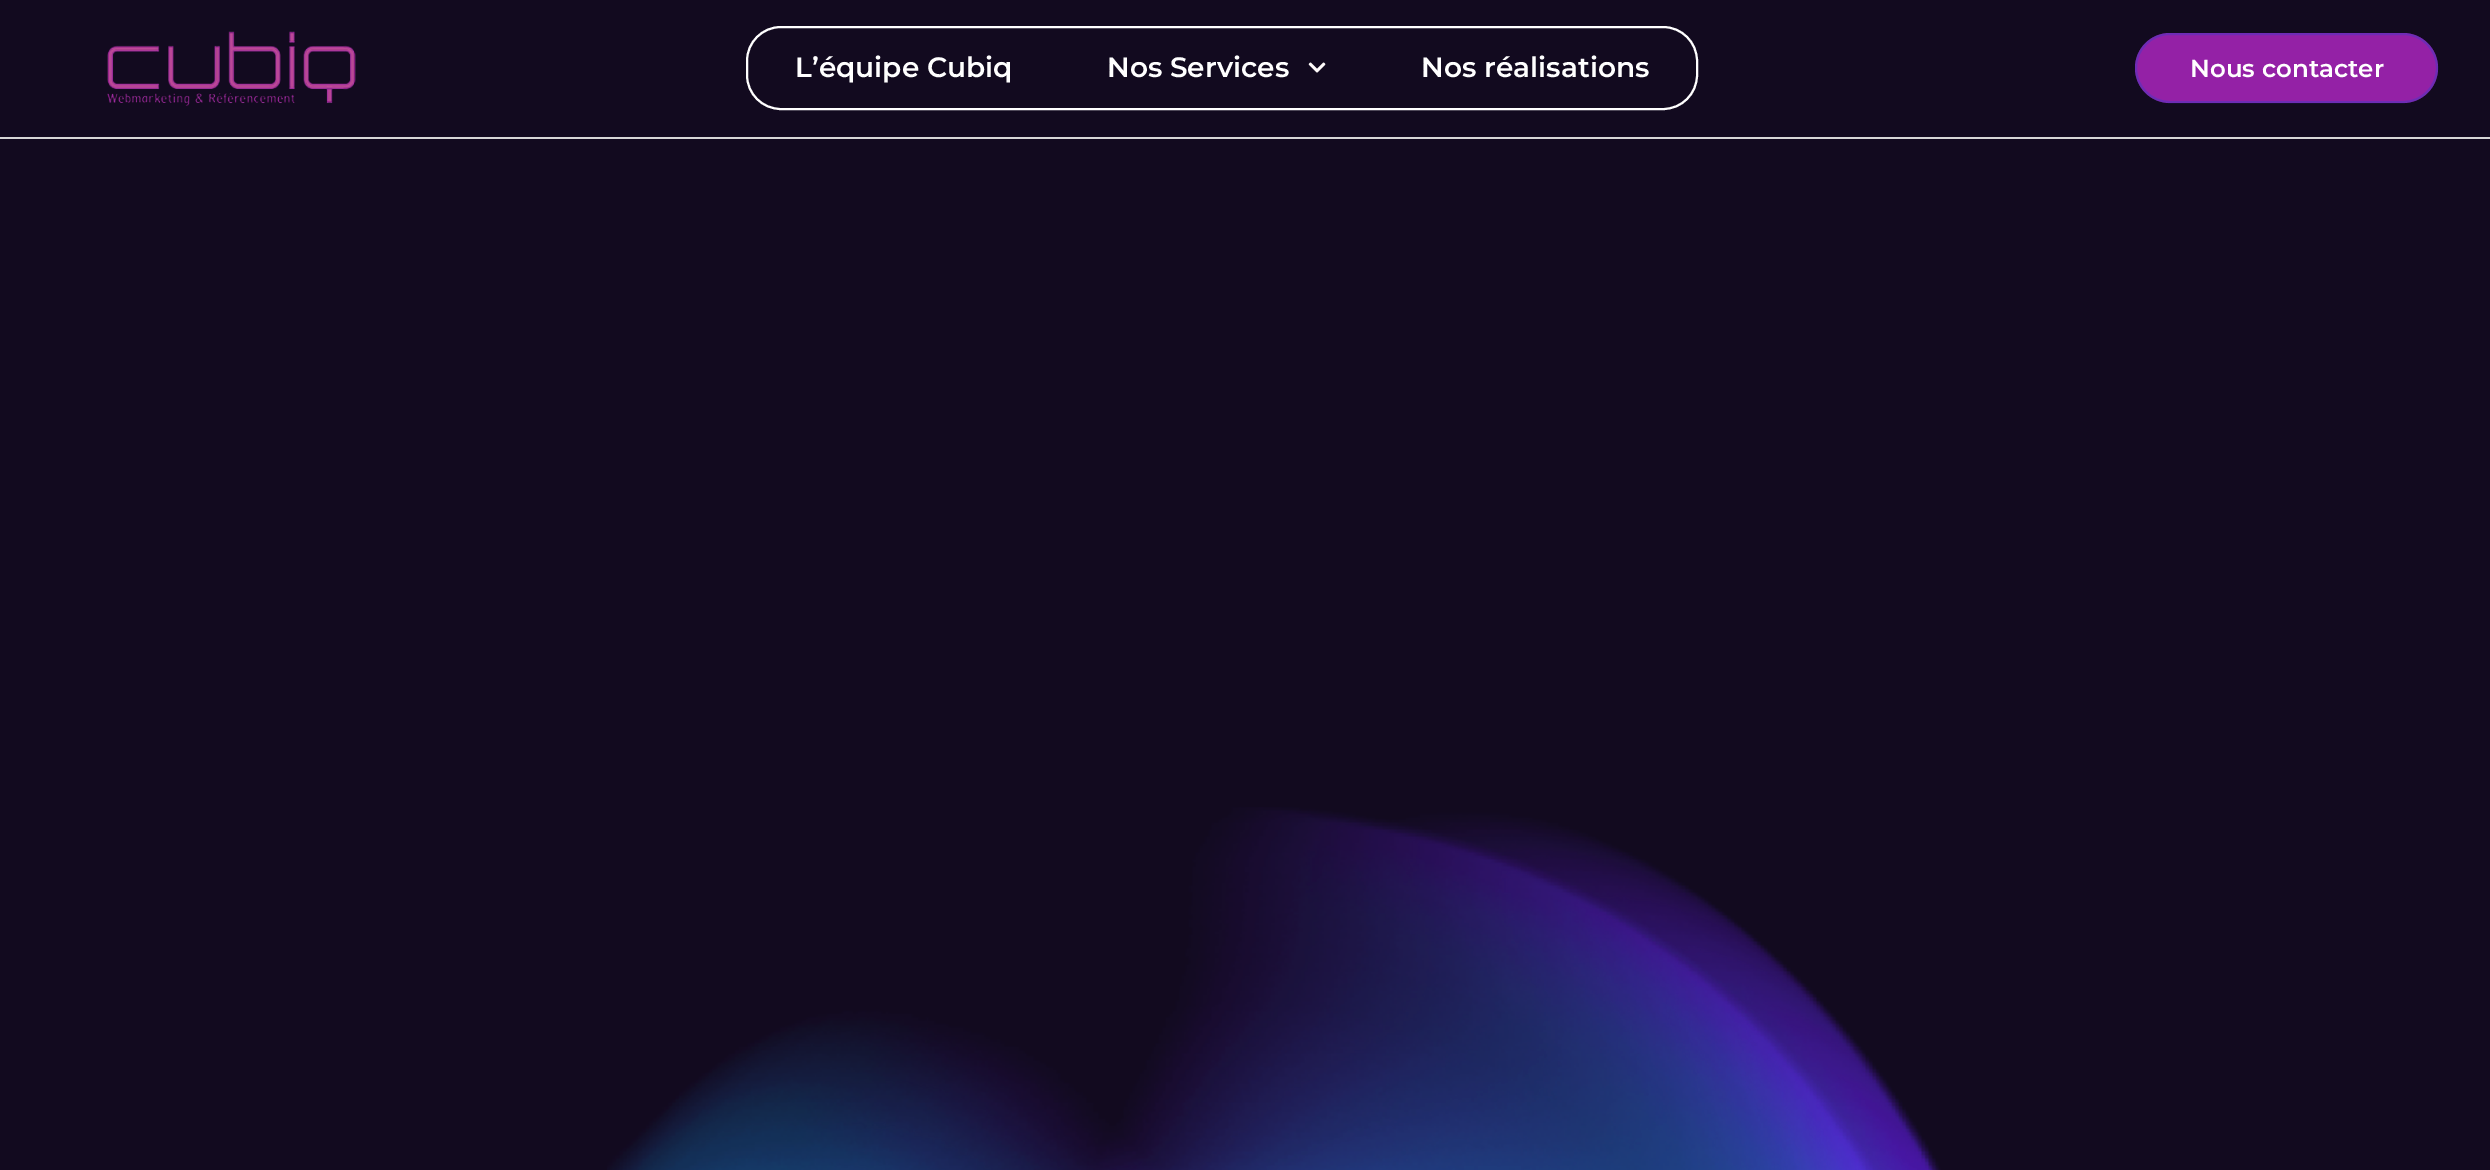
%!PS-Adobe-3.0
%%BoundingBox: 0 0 2490 1170
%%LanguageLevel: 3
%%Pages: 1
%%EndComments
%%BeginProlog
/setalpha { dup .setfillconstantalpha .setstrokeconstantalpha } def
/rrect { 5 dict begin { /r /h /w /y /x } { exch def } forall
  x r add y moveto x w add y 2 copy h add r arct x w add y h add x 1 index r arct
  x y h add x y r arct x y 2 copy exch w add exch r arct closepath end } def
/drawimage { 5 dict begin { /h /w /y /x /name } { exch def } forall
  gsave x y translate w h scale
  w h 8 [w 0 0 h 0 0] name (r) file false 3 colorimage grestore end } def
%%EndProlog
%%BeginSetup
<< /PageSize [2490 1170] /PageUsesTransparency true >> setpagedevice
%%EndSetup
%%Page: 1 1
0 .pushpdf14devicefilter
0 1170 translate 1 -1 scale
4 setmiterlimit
0.071 0.039 0.122 setrgbcolor
0 0 2490 1170 rectfill
0.839 setgray
0 137 2490 2 rectfill
(images/1.raw) 107 31 249 75 drawimage
1 setgray
2 setlinewidth
747 27 950 82 34 rrect stroke
(images/2.raw) 1308 62 18 11 drawimage
0.58 0.129 0.651 setrgbcolor
2135 33 303 70 35 rrect fill
0.34 setalpha
0.149 0.259 0.827 setrgbcolor
2136 34 301 68 34 rrect stroke
1 setalpha
(images/3.raw) 607 807 1334 363 drawimage
/Montserrat-SemiBold [28 0 0 -28 0 0] selectfont
1 setgray
795 77 moveto (L’équipe Cubiq) show
1107 77 moveto (Nos Services) show
1421 77 moveto (Nos réalisations) show
/Montserrat-SemiBold [24.5 0 0 -24.5 0 0] selectfont
2190 77 moveto (Nous contacter) show
.poppdf14devicefilter showpage
%%EOF
